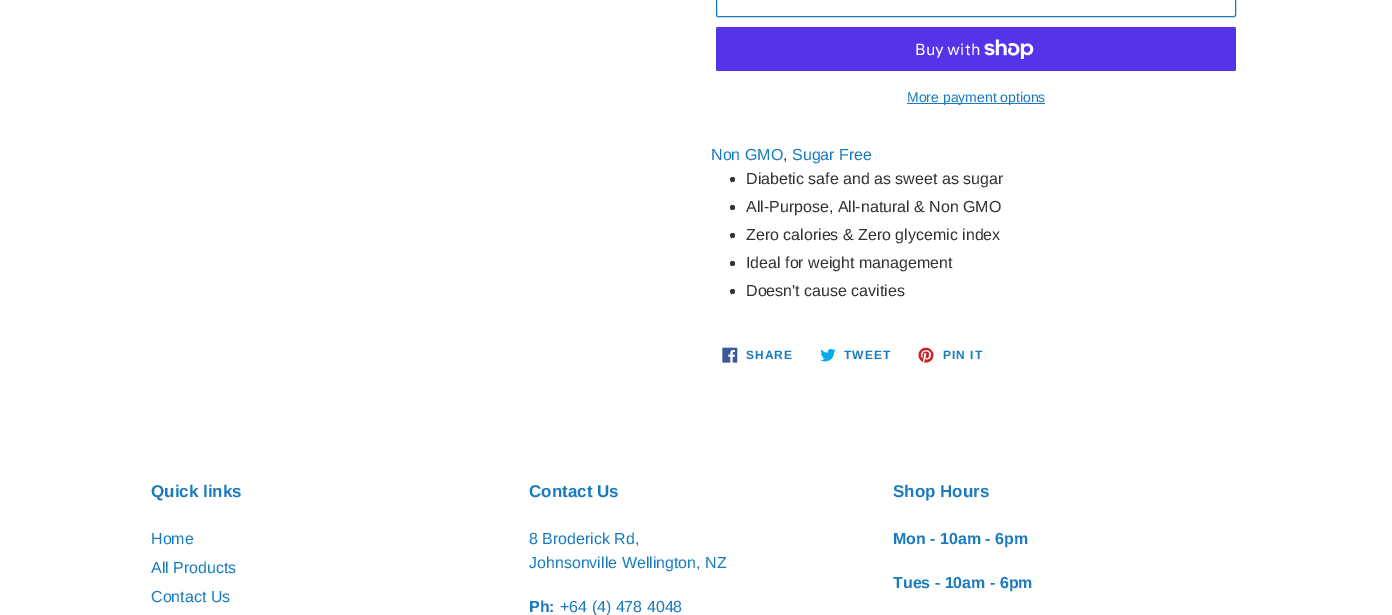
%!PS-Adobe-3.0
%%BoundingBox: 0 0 1392 615
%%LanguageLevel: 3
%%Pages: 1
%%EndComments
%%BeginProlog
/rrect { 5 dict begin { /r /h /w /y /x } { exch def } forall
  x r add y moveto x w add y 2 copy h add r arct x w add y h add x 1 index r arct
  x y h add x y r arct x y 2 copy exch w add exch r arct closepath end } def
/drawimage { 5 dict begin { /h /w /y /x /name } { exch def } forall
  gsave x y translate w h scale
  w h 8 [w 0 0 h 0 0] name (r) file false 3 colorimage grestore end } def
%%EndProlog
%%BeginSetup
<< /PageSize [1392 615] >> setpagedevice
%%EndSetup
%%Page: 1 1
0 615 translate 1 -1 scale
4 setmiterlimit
1 setgray
0 0 1392 615 rectfill
0.098 0.482 0.741 setrgbcolor
716.5 -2.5 519 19 1.5 rrect stroke
0.329 0.2 0.922 setrgbcolor
716 27 520 44 2 rrect fill
(images/1.raw) 984 39 50 20 drawimage
0.098 0.482 0.741 setrgbcolor
907 103 138 1 rectfill
0.2 0.196 0.196 setrgbcolor
newpath 732.5 179.5 2.5 0 360 arc closepath fill
newpath 732.5 207.5 2.5 0 360 arc closepath fill
newpath 732.5 235.5 2.5 0 360 arc closepath fill
newpath 732.5 263.5 2.5 0 360 arc closepath fill
newpath 732.5 291.5 2.5 0 360 arc closepath fill
(images/2.raw) 722 347 16 16 drawimage
(images/3.raw) 820 348 16 14 drawimage
(images/4.raw) 918 347 16 16 drawimage
/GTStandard-Regular [16 0 0 -16 0 0] selectfont
1 setgray
915 55 moveto (Buy with) show
/LiberationSans-Regular [14 0 0 -14 0 0] selectfont
0.098 0.482 0.741 setrgbcolor
907 102 moveto (More payment options) show
/LiberationSans-Regular [16 0 0 -16 0 0] selectfont
711 160 moveto (Non GMO) show
0.2 0.196 0.196 setrgbcolor
783 160 moveto (,) show
0.098 0.482 0.741 setrgbcolor
792 160 moveto (Sugar Free) show
0.2 0.196 0.196 setrgbcolor
746 184 moveto (Diabetic safe and as sweet as sugar) show
746 212 moveto (All-Purpose, All-natural & Non GMO) show
746 240 moveto (Zero calories & Zero glycemic index) show
746 268 moveto (Ideal for weight management) show
746 296 moveto (Doesn't cause cavities) show
/LiberationSans-Bold [12 0 0 -12 0 0] selectfont
0.098 0.482 0.741 setrgbcolor
746 359 moveto 1 0 (SHARE) ashow
844 359 moveto 1 0 (TWEET) ashow
943 359 moveto 1 0 (PIN IT) ashow
/LiberationSans-Bold [17 0 0 -17 0 0] selectfont
151 497 moveto (Quick links) show
/LiberationSans-Regular [16 0 0 -16 0 0] selectfont
151 544 moveto (Home) show
151 573 moveto (All Products) show
151 602 moveto (Contact Us) show
/LiberationSans-Bold [17 0 0 -17 0 0] selectfont
529 497 moveto (Contact Us) show
/LiberationSans-Regular [16 0 0 -16 0 0] selectfont
529 544 moveto (8 Broderick Rd,) show
529 568 moveto (Johnsonville Wellington, NZ) show
/LiberationSans-Bold [16 0 0 -16 0 0] selectfont
529 612 moveto (Ph:) show
/LiberationSans-Regular [16 0 0 -16 0 0] selectfont
560 612 moveto (+64 \(4\) 478 4048) show
/LiberationSans-Bold [17 0 0 -17 0 0] selectfont
893 497 moveto (Shop Hours) show
/LiberationSans-Bold [16 0 0 -16 0 0] selectfont
893 544 moveto (Mon - 10am - 6pm) show
893 588 moveto (Tues - 10am - 6pm) show
showpage
%%EOF
